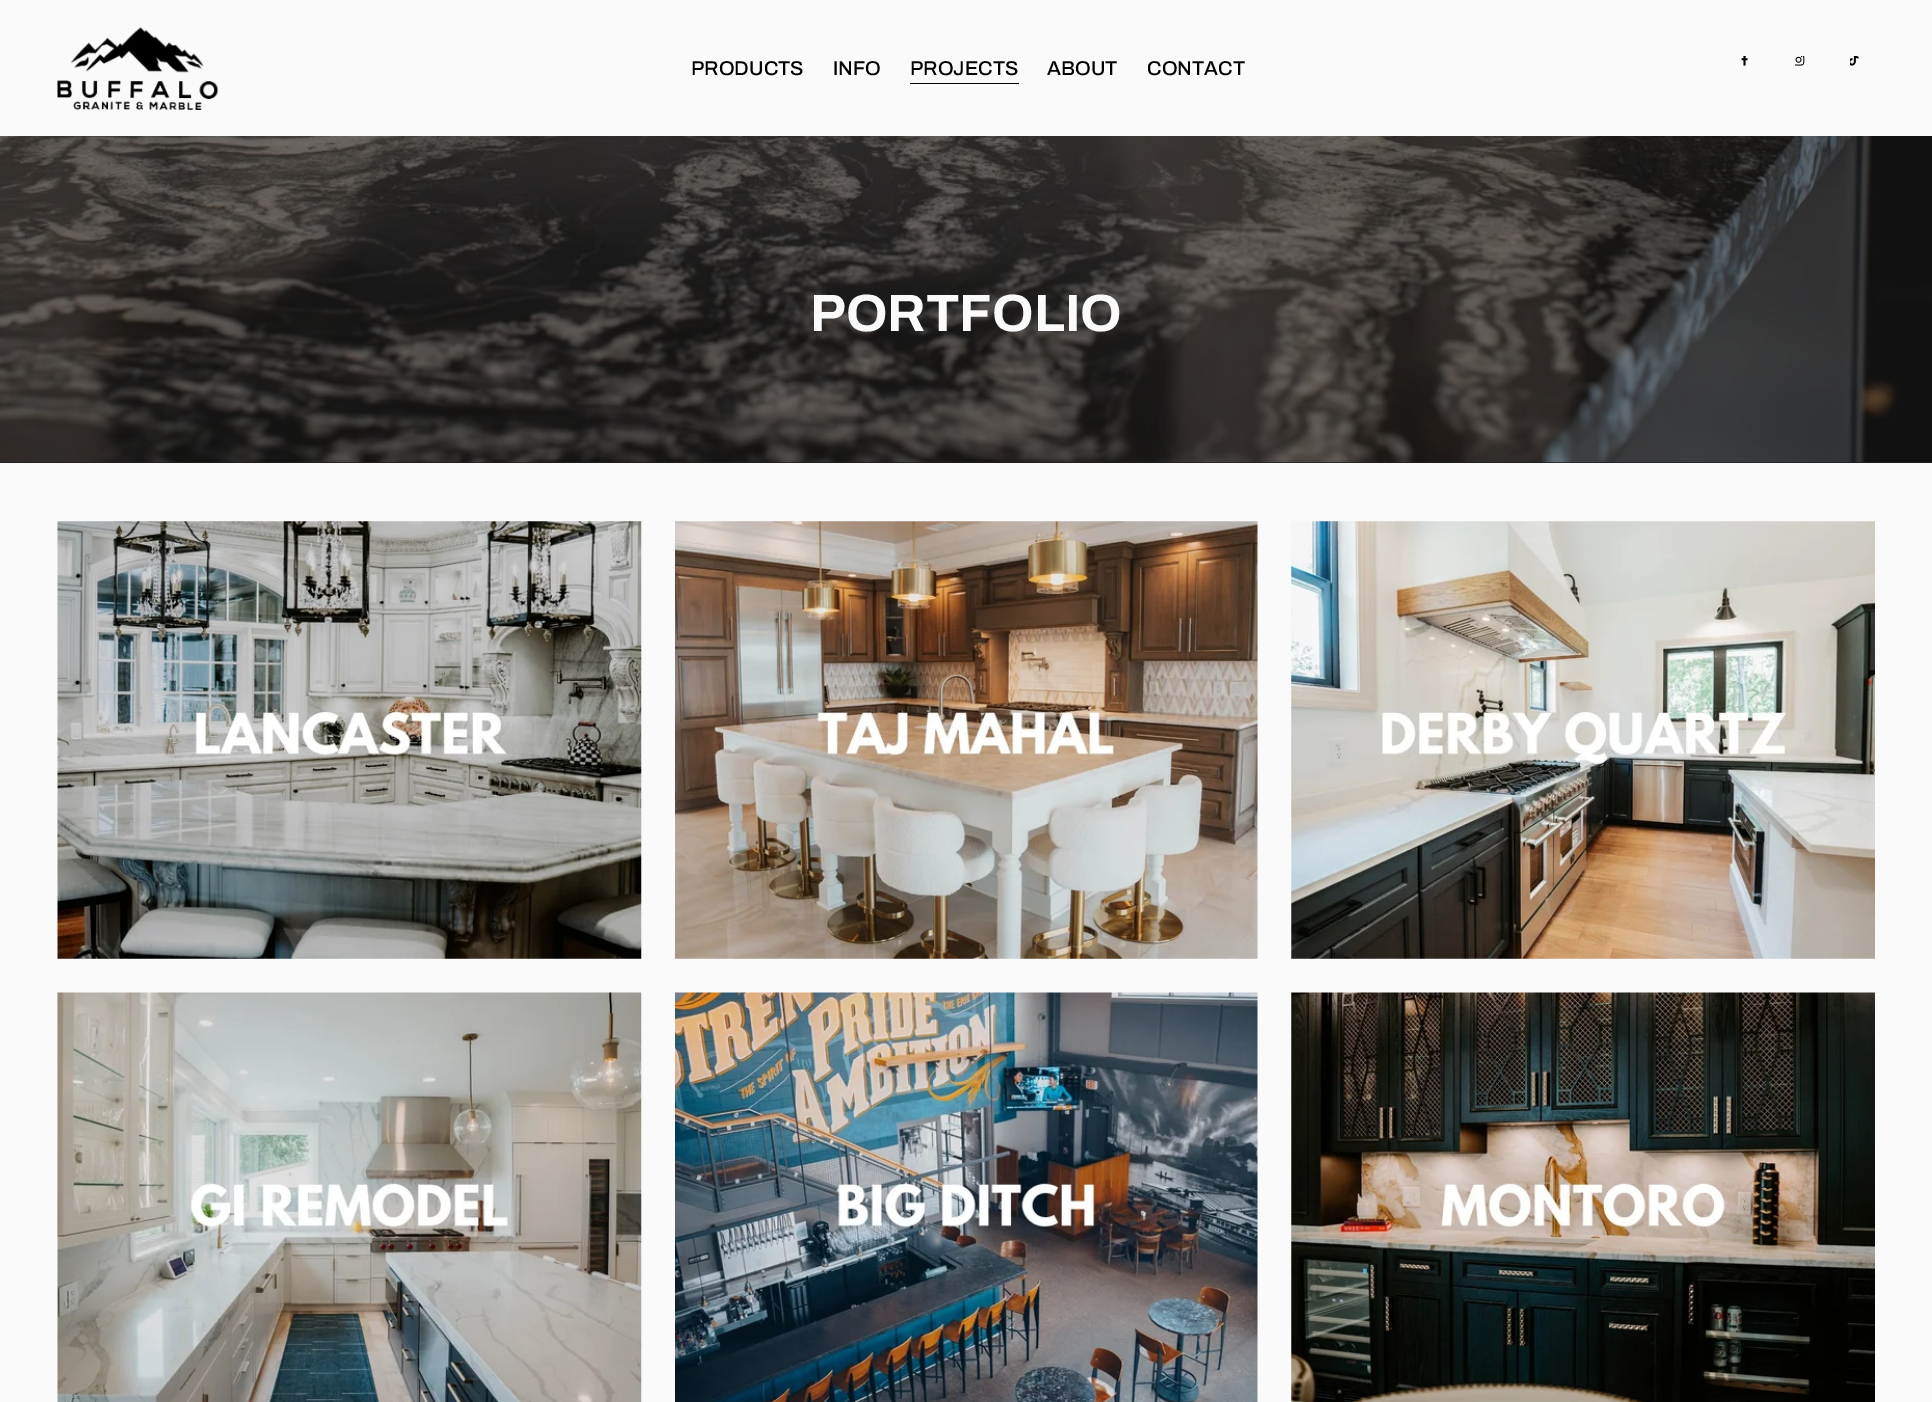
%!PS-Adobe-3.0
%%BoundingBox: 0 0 1932 1402
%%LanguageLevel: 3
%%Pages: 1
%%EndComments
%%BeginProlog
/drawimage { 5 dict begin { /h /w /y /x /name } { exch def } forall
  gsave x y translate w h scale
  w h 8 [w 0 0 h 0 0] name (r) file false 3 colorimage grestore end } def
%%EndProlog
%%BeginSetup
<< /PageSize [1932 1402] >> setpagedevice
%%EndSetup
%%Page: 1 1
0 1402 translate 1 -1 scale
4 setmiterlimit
0.98 setgray
0 0 1932 1402 rectfill
(images/1.raw) 57 27 162 83 drawimage
0 setgray
910 83 109 1 rectfill
(images/2.raw) 1741 56 7 10 drawimage
(images/3.raw) 1795 56 10 10 drawimage
(images/4.raw) 1850 56 9 10 drawimage
0.11 setgray
0 462 1932 1 rectfill
(images/5.raw) 0 136 1932 327 drawimage
(images/6.raw) 57 521 585 438 drawimage
(images/7.raw) 675 521 583 438 drawimage
(images/8.raw) 1291 521 584 438 drawimage
(images/9.raw) 57 992 585 410 drawimage
(images/10.raw) 675 992 583 410 drawimage
(images/11.raw) 1291 992 584 410 drawimage
/Archivo-Medium [20 0 0 -20 0 0] selectfont
0 setgray
691 75 moveto (PRODUCTS) show
833 75 moveto (INFO) show
910 75 moveto (PROJECTS) show
1047 75 moveto (ABOUT) show
1147 75 moveto (CONTACT) show
/Archivo-Bold [52.5 0 0 -52.5 0 0] selectfont
0.98 setgray
810 331 moveto (PORTFOLIO) show
showpage
%%EOF
